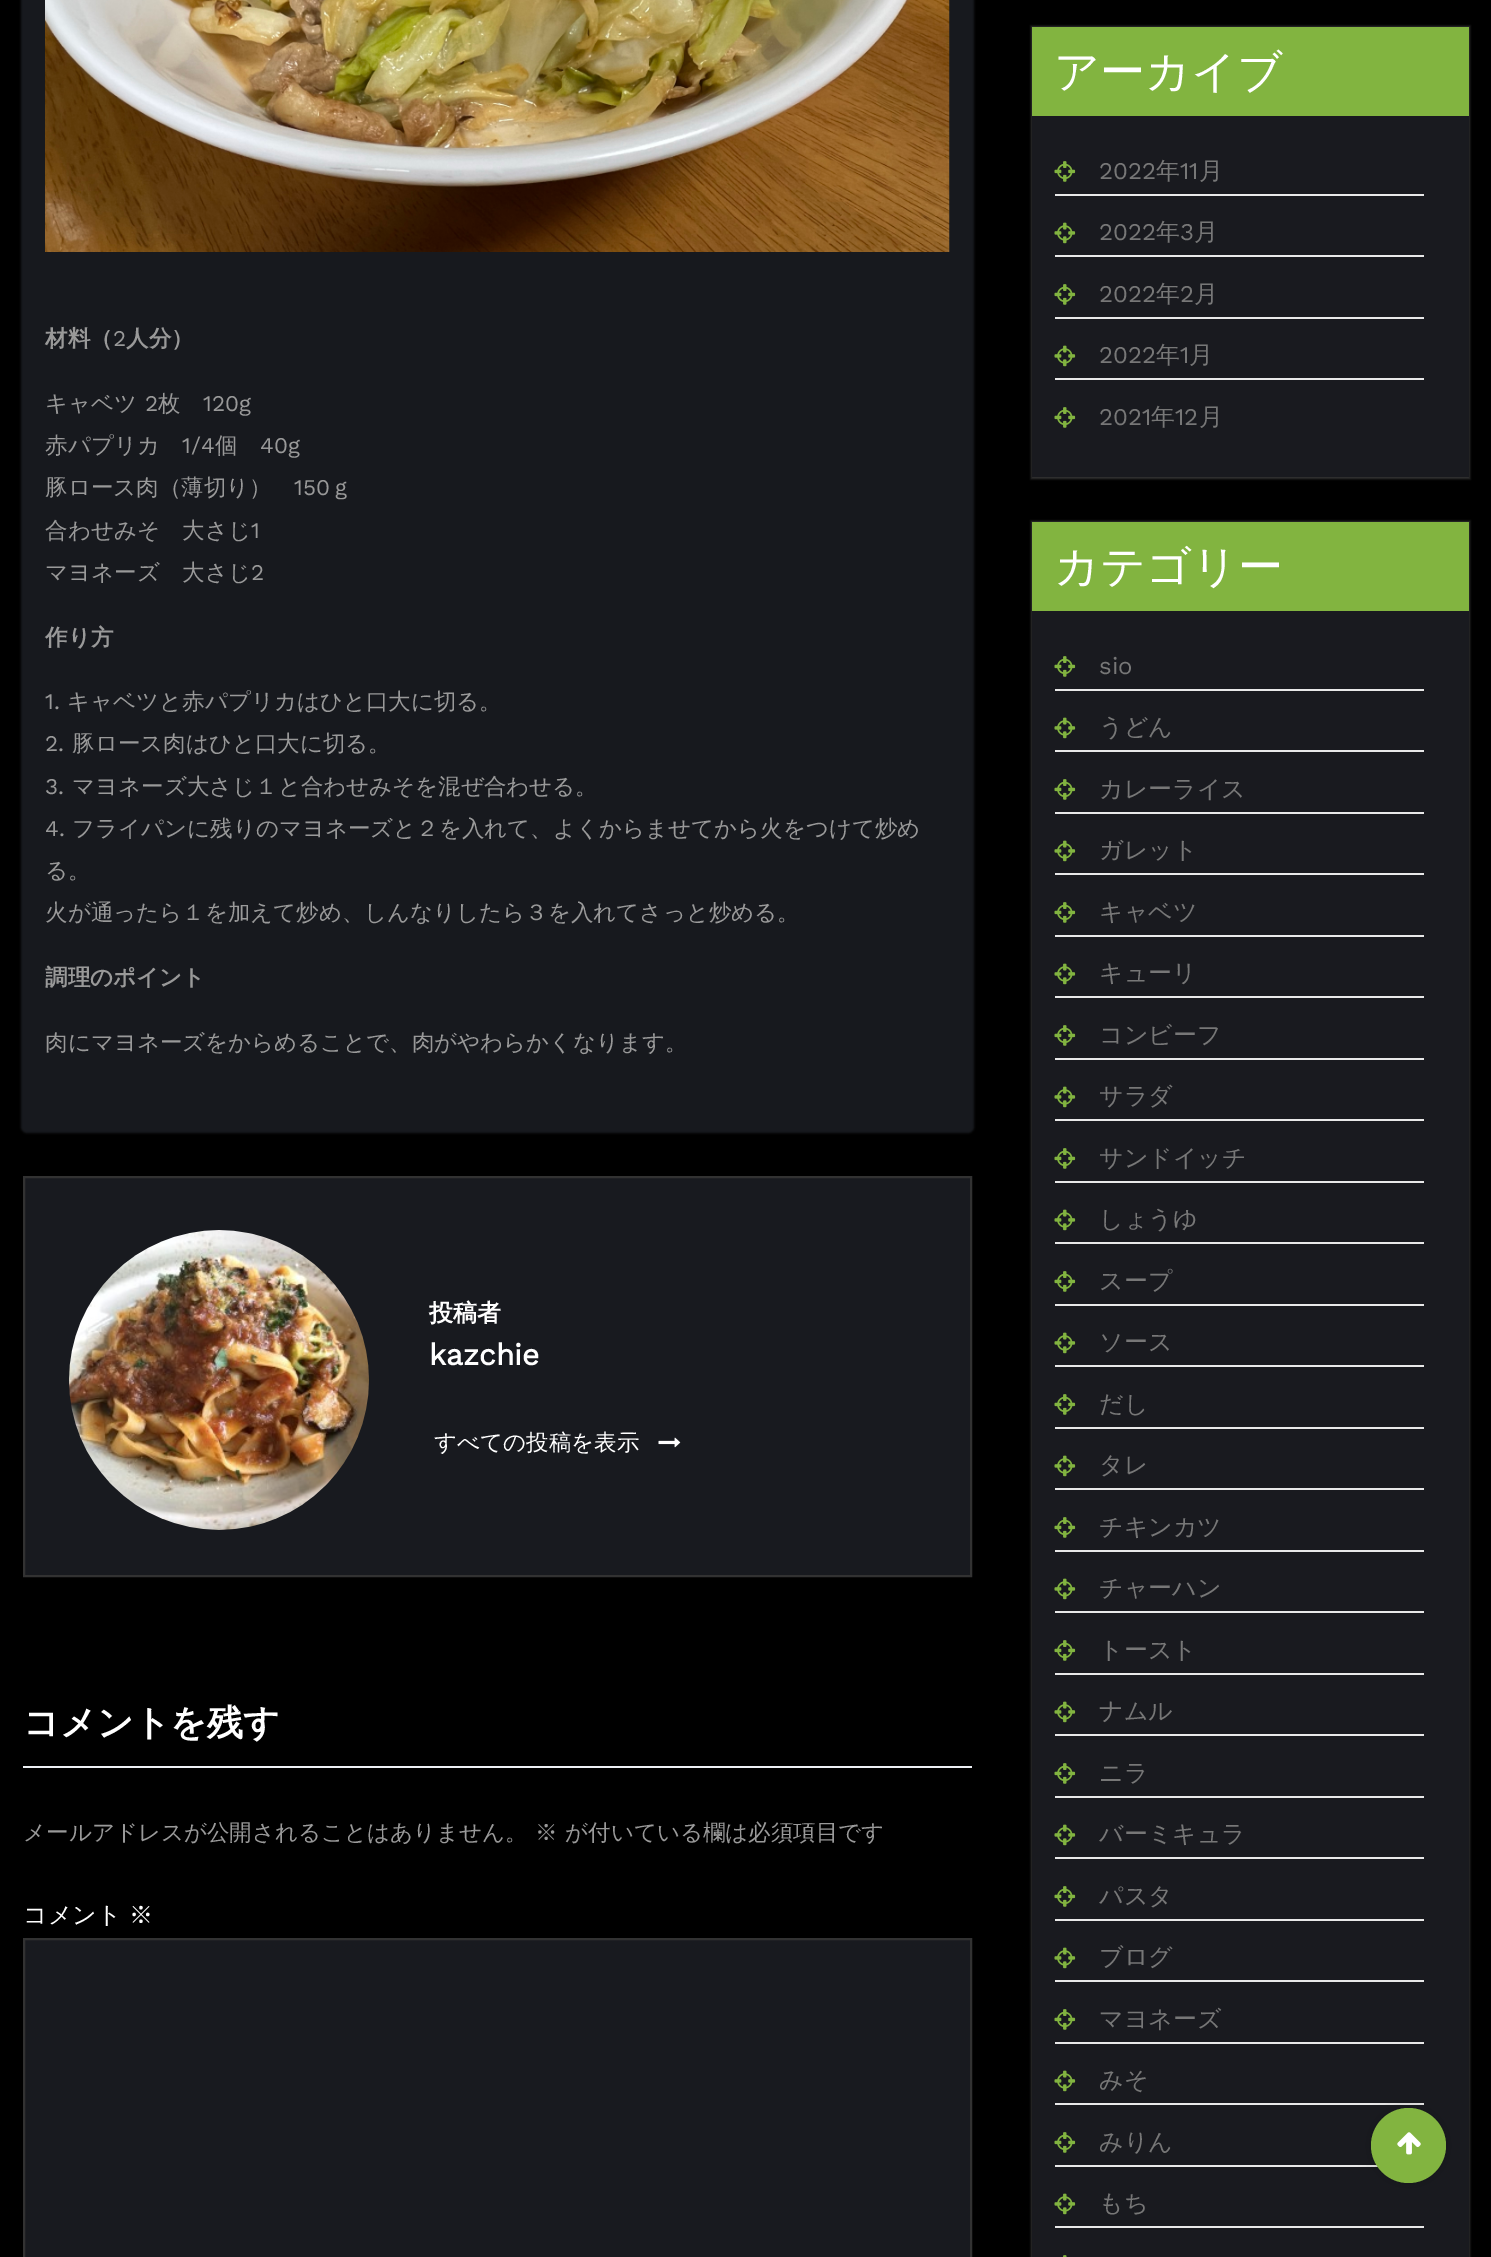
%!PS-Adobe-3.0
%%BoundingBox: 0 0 1491 2257
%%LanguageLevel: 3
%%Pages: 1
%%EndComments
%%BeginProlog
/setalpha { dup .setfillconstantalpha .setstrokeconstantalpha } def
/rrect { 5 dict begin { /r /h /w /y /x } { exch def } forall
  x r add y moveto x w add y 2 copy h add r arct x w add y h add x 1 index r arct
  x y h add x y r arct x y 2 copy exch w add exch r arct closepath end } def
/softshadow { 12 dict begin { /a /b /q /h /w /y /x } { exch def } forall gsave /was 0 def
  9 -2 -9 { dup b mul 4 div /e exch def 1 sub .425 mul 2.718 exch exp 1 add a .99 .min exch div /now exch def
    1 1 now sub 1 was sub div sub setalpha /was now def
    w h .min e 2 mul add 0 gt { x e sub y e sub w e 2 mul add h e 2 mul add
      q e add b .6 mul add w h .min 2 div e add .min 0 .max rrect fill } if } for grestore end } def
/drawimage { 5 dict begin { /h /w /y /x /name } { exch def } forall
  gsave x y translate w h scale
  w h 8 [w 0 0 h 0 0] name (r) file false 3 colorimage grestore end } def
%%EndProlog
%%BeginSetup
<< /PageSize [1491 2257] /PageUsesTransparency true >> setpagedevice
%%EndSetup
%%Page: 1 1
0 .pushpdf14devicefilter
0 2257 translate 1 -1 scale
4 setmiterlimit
0 setgray
0 0 1491 2257 rectfill
0.094 0.102 0.122 setrgbcolor
21 -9 953 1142 6 1 1 softshadow
(images/1.raw) 45 0 905 252 drawimage
newpath 24 1177 moveto 971 1177 lineto 971 1576 lineto 24 1576 lineto closepath gsave fill grestore
0.196 setgray
2 setlinewidth
stroke
(images/2.raw) 69 1230 300 300 drawimage
(images/3.raw) 658 1437 23 11 drawimage
0.925 0.937 0.953 setrgbcolor
23 1766 949 2 rectfill
0.094 0.102 0.122 setrgbcolor
newpath 24 1939 moveto 971 1939 lineto 971 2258 lineto 24 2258 lineto closepath gsave fill grestore
0.196 setgray
stroke
1031 26 439 453 0 1 1 softshadow
0.098 0.102 0.122 setrgbcolor
1032 116 437 361 rectfill
0.51 0.706 0.251 setrgbcolor
1032 27 437 89 rectfill
0.91 setgray
1055 194 369 2 rectfill
(images/4.raw) 1054 161 22 21 drawimage
1055 255 369 2 rectfill
(images/5.raw) 1054 222 22 22 drawimage
1055 317 369 2 rectfill
(images/4.raw) 1054 284 22 21 drawimage
1055 378 369 2 rectfill
(images/5.raw) 1054 345 22 22 drawimage
(images/4.raw) 1054 407 22 21 drawimage
0.196 setgray
1031 521 439 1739 0 1 1 softshadow
0.098 0.102 0.122 setrgbcolor
1032 611 437 1646 rectfill
0.51 0.706 0.251 setrgbcolor
1032 522 437 89 rectfill
0.91 setgray
1055 689 369 2 rectfill
(images/4.raw) 1054 656 22 21 drawimage
1055 750 369 2 rectfill
(images/5.raw) 1054 717 22 22 drawimage
1055 812 369 2 rectfill
(images/4.raw) 1054 779 22 21 drawimage
1055 873 369 2 rectfill
(images/5.raw) 1054 840 22 22 drawimage
1055 935 369 2 rectfill
(images/4.raw) 1054 902 22 21 drawimage
1055 996 369 2 rectfill
(images/5.raw) 1054 963 22 22 drawimage
1055 1058 369 2 rectfill
(images/4.raw) 1054 1025 22 21 drawimage
1055 1119 369 2 rectfill
(images/5.raw) 1054 1086 22 22 drawimage
1055 1181 369 2 rectfill
(images/4.raw) 1054 1148 22 21 drawimage
1055 1242 369 2 rectfill
(images/5.raw) 1054 1209 22 22 drawimage
1055 1304 369 2 rectfill
(images/4.raw) 1054 1271 22 21 drawimage
1055 1365 369 2 rectfill
(images/5.raw) 1054 1332 22 22 drawimage
1055 1427 369 2 rectfill
(images/4.raw) 1054 1394 22 21 drawimage
1055 1488 369 2 rectfill
(images/5.raw) 1054 1455 22 22 drawimage
1055 1550 369 2 rectfill
(images/4.raw) 1054 1517 22 21 drawimage
1055 1611 369 2 rectfill
(images/5.raw) 1054 1578 22 22 drawimage
1055 1673 369 2 rectfill
(images/4.raw) 1054 1640 22 21 drawimage
1055 1734 369 2 rectfill
(images/5.raw) 1054 1701 22 22 drawimage
1055 1796 369 2 rectfill
(images/4.raw) 1054 1763 22 21 drawimage
1055 1857 369 2 rectfill
(images/5.raw) 1054 1824 22 22 drawimage
1055 1919 369 2 rectfill
(images/4.raw) 1054 1886 22 21 drawimage
1055 1980 369 2 rectfill
(images/5.raw) 1054 1947 22 22 drawimage
1055 2042 369 2 rectfill
(images/4.raw) 1054 2009 22 21 drawimage
1055 2103 369 2 rectfill
(images/5.raw) 1054 2070 22 22 drawimage
1055 2165 323 2 rectfill
(images/4.raw) 1054 2132 22 21 drawimage
1055 2226 369 2 rectfill
(images/5.raw) 1054 2193 22 22 drawimage
(images/6.raw) 1063 2255 4 2 drawimage
0 setgray
1371 2108 75 75 37.5 7.5 0.2 softshadow
0.51 0.706 0.251 setrgbcolor
newpath 1408.5 2145.5 37.5 0 360 arc closepath fill
(images/7.raw) 1397 2132 24 23 drawimage
/WenQuanYiZenHei-Bold [22.5 0 0 -22.5 0 0] selectfont
0.6 setgray
45 346 moveto (材料（) show
/WorkSans-Regular [22.5 0 0 -22.5 0 0] selectfont
113 346 moveto (2) show
/WenQuanYiZenHei-Bold [22.5 0 0 -22.5 0 0] selectfont
126 346 moveto (人分）) show
/WenQuanYiZenHei-Medium [22.5 0 0 -22.5 0 0] selectfont
45 411 moveto (キャベツ) show
/WorkSans-Regular [22.5 0 0 -22.5 0 0] selectfont
145 411 moveto (2) show
/WenQuanYiZenHei-Medium [22.5 0 0 -22.5 0 0] selectfont
158 411 moveto (枚) show
/WorkSans-Regular [22.5 0 0 -22.5 0 0] selectfont
203 411 moveto (120g) show
/WenQuanYiZenHei-Medium [22.5 0 0 -22.5 0 0] selectfont
45 453 moveto (赤パプリカ) show
/WorkSans-Regular [22.5 0 0 -22.5 0 0] selectfont
182 453 moveto (1/4) show
/WenQuanYiZenHei-Medium [22.5 0 0 -22.5 0 0] selectfont
215 453 moveto (個) show
/WorkSans-Regular [22.5 0 0 -22.5 0 0] selectfont
260 453 moveto (40g) show
/WenQuanYiZenHei-Medium [22.5 0 0 -22.5 0 0] selectfont
45 495 moveto (豚ロース肉（薄切り）) show
/WorkSans-Regular [22.5 0 0 -22.5 0 0] selectfont
294 495 moveto (150) show
/WenQuanYiZenHei-Medium [22.5 0 0 -22.5 0 0] selectfont
330 495 moveto (ｇ) show
45 538 moveto (合わせみそ　大さじ) show
/WorkSans-Regular [22.5 0 0 -22.5 0 0] selectfont
251 538 moveto (1) show
/WenQuanYiZenHei-Medium [22.5 0 0 -22.5 0 0] selectfont
45 580 moveto (マヨネーズ　大さじ) show
/WorkSans-Regular [22.5 0 0 -22.5 0 0] selectfont
251 580 moveto (2) show
/WenQuanYiZenHei-Bold [22.5 0 0 -22.5 0 0] selectfont
45 645 moveto (作り方) show
/WorkSans-Regular [22.5 0 0 -22.5 0 0] selectfont
45 709 moveto (1.) show
/WenQuanYiZenHei-Medium [22.5 0 0 -22.5 0 0] selectfont
67 709 moveto (キャベツと赤パプリカはひと口大に切る。) show
/WorkSans-Regular [22.5 0 0 -22.5 0 0] selectfont
45 751 moveto (2.) show
/WenQuanYiZenHei-Medium [22.5 0 0 -22.5 0 0] selectfont
72 751 moveto (豚ロース肉はひと口大に切る。) show
/WorkSans-Regular [22.5 0 0 -22.5 0 0] selectfont
45 794 moveto (3.) show
/WenQuanYiZenHei-Medium [22.5 0 0 -22.5 0 0] selectfont
72 794 moveto (マヨネーズ大さじ１と合わせみそを混ぜ合わせる。) show
/WorkSans-Regular [22.5 0 0 -22.5 0 0] selectfont
45 836 moveto (4.) show
/WenQuanYiZenHei-Medium [22.5 0 0 -22.5 0 0] selectfont
72 836 moveto (フライパンに残りのマヨネーズと２を入れて、よくからませてから火をつけて炒め) show
45 878 moveto (る。) show
45 920 moveto (火が通ったら１を加えて炒め、しんなりしたら３を入れてさっと炒める。) show
/WenQuanYiZenHei-Bold [22.5 0 0 -22.5 0 0] selectfont
45 985 moveto (調理のポイント) show
/WenQuanYiZenHei-Medium [22.5 0 0 -22.5 0 0] selectfont
45 1050 moveto (肉にマヨネーズをからめることで、肉がやわらかくなります。) show
/WenQuanYiZenHei-Bold [24 0 0 -24 0 0] selectfont
1 setgray
429 1321 moveto (投稿者) show
/WorkSans-Bold [30 0 0 -30 0 0] selectfont
429 1365 moveto (kazchie) show
/WenQuanYiZenHei-Medium [22.5 0 0 -22.5 0 0] selectfont
434 1450 moveto (すべての投稿を表示) show
/WenQuanYiZenHei-Bold [36 0 0 -36 0 0] selectfont
23 1735 moveto (コメントを残す) show
/WenQuanYiZenHei-Medium [22.5 0 0 -22.5 0 0] selectfont
0.6 setgray
23 1840 moveto (メールアドレスが公開されることはありません。) show
535 1840 moveto (※) show
565 1840 moveto (が付いている欄は必須項目です) show
/WenQuanYiZenHei-Medium [24 0 0 -24 0 0] selectfont
1 setgray
23 1923 moveto (コメント) show
129 1923 moveto (※) show
/WenQuanYiZenHei-Medium [45 0 0 -45 0 0] selectfont
1054 87 moveto (アーカイブ) show
/WorkSans-Regular [24 0 0 -24 0 0] selectfont
0.467 setgray
1099 179 moveto (2022) show
/WenQuanYiZenHei-Medium [24 0 0 -24 0 0] selectfont
1156 179 moveto (年) show
/WorkSans-Regular [24 0 0 -24 0 0] selectfont
1180 179 moveto (11) show
/WenQuanYiZenHei-Medium [24 0 0 -24 0 0] selectfont
1199 179 moveto (月) show
/WorkSans-Regular [24 0 0 -24 0 0] selectfont
1099 240 moveto (2022) show
/WenQuanYiZenHei-Medium [24 0 0 -24 0 0] selectfont
1156 240 moveto (年) show
/WorkSans-Regular [24 0 0 -24 0 0] selectfont
1180 240 moveto (3) show
/WenQuanYiZenHei-Medium [24 0 0 -24 0 0] selectfont
1194 240 moveto (月) show
/WorkSans-Regular [24 0 0 -24 0 0] selectfont
1099 302 moveto (2022) show
/WenQuanYiZenHei-Medium [24 0 0 -24 0 0] selectfont
1156 302 moveto (年) show
/WorkSans-Regular [24 0 0 -24 0 0] selectfont
1180 302 moveto (2) show
/WenQuanYiZenHei-Medium [24 0 0 -24 0 0] selectfont
1194 302 moveto (月) show
/WorkSans-Regular [24 0 0 -24 0 0] selectfont
1099 363 moveto (2022) show
/WenQuanYiZenHei-Medium [24 0 0 -24 0 0] selectfont
1156 363 moveto (年) show
/WorkSans-Regular [24 0 0 -24 0 0] selectfont
1180 363 moveto (1) show
/WenQuanYiZenHei-Medium [24 0 0 -24 0 0] selectfont
1189 363 moveto (月) show
/WorkSans-Regular [24 0 0 -24 0 0] selectfont
1099 425 moveto (2021) show
/WenQuanYiZenHei-Medium [24 0 0 -24 0 0] selectfont
1151 425 moveto (年) show
/WorkSans-Regular [24 0 0 -24 0 0] selectfont
1175 425 moveto (12) show
/WenQuanYiZenHei-Medium [24 0 0 -24 0 0] selectfont
1199 425 moveto (月) show
/WenQuanYiZenHei-Medium [45 0 0 -45 0 0] selectfont
1 setgray
1054 582 moveto (カテゴリー) show
/WorkSans-Regular [24 0 0 -24 0 0] selectfont
0.467 setgray
1099 674 moveto (sio) show
/WenQuanYiZenHei-Medium [24 0 0 -24 0 0] selectfont
1099 735 moveto (うどん) show
1099 797 moveto (カレーライス) show
1099 858 moveto (ガレット) show
1099 920 moveto (キャベツ) show
1099 981 moveto (キューリ) show
1099 1043 moveto (コンビーフ) show
1099 1104 moveto (サラダ) show
1099 1166 moveto (サンドイッチ) show
1099 1227 moveto (しょうゆ) show
1099 1289 moveto (スープ) show
1099 1350 moveto (ソース) show
1099 1412 moveto (だし) show
1099 1473 moveto (タレ) show
1099 1535 moveto (チキンカツ) show
1099 1596 moveto (チャーハン) show
1099 1658 moveto (トースト) show
1099 1719 moveto (ナムル) show
1099 1781 moveto (ニラ) show
1099 1842 moveto (バーミキュラ) show
1099 1904 moveto (パスタ) show
1099 1965 moveto (ブログ) show
1099 2027 moveto (マヨネーズ) show
1099 2088 moveto (みそ) show
1099 2150 moveto (みりん) show
1099 2211 moveto (もち) show
.poppdf14devicefilter showpage
%%EOF
